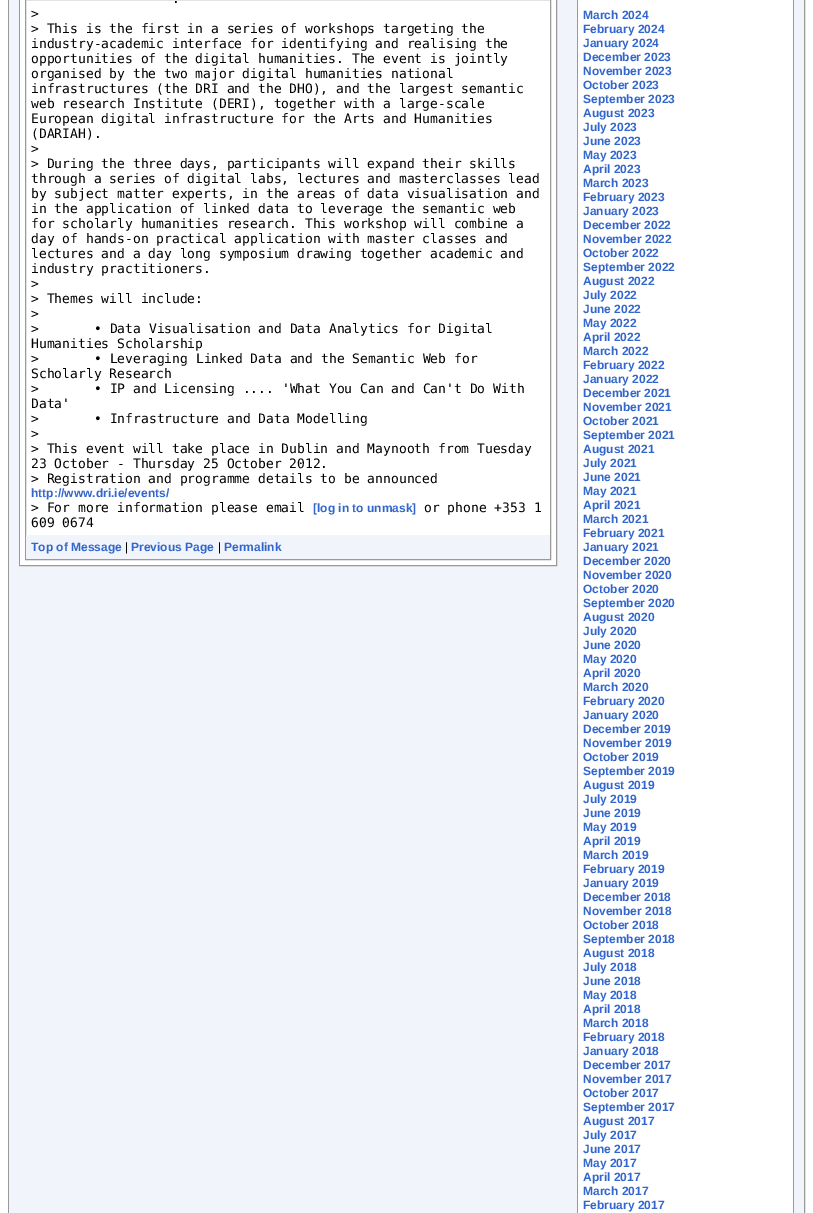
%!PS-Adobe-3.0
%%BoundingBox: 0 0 813 1213
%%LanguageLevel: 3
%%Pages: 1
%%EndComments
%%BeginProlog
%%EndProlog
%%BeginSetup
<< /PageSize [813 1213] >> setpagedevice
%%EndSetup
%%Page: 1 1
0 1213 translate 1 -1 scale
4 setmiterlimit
1 setgray
0 0 813 1213 rectfill
0.6 setgray
8.5 -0.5 796 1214 rectstroke
0.945 0.957 0.98 setrgbcolor
9 0 795 1213 rectfill
0.6 setgray
19.5 -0.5 537 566 rectstroke
1 setgray
20 0 536 565 rectfill
0.6 setgray
25.5 -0.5 525 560 rectstroke
0.945 0.957 0.98 setrgbcolor
26 535 524 24 rectfill
1 setgray
578 0 215 1213 rectfill
0.6 setgray
793 0 1 1213 rectfill
577 0 1 1213 rectfill
/DejaVuSansMono-Regular [13 0 0 -13 0 0] selectfont
0 setgray
172 3 moveto (.) show
31 18 moveto (>) show
31 33 moveto (> This is the first in a series of workshops targeting the) show
31 48 moveto (industry-academic interface for identifying and realising the) show
31 63 moveto (opportunities of the digital humanities. The event is jointly) show
31 78 moveto (organised by the two major digital humanities national) show
31 93 moveto (infrastructures \(the DRI and the DHO\), and the largest semantic) show
31 108 moveto (web research Institute \(DERI\), together with a large-scale) show
31 123 moveto (European digital infrastructure for the Arts and Humanities) show
31 138 moveto (\(DARIAH\).) show
31 153 moveto (>) show
31 168 moveto (> During the three days, participants will expand their skills) show
31 183 moveto (through a series of digital labs, lectures and masterclasses lead) show
31 198 moveto (by subject matter experts, in the areas of data visualisation and) show
31 213 moveto (in the application of linked data to leverage the semantic web) show
31 228 moveto (for scholarly humanities research. This workshop will combine a) show
31 243 moveto (day of hands-on practical application with master classes and) show
31 258 moveto (lectures and a day long symposium drawing together academic and) show
31 273 moveto (industry practitioners.) show
31 288 moveto (>) show
31 303 moveto (> Themes will include:) show
31 318 moveto (>) show
31 333 moveto (>) show
94 333 moveto (• Data Visualisation and Data Analytics for Digital) show
31 348 moveto (Humanities Scholarship) show
31 363 moveto (>) show
94 363 moveto (• Leveraging Linked Data and the Semantic Web for) show
31 378 moveto (Scholarly Research) show
31 393 moveto (>) show
94 393 moveto (• IP and Licensing .... 'What You Can and Can't Do With) show
31 408 moveto (Data') show
31 423 moveto (>) show
94 423 moveto (• Infrastructure and Data Modelling) show
31 438 moveto (>) show
31 453 moveto (> This event will take place in Dublin and Maynooth from Tuesday) show
31 468 moveto (23 October - Thursday 25 October 2012.) show
31 483 moveto (> Registration and programme details to be announced) show
/LiberationSans-Bold [12 0 0 -12 0 0] selectfont
0.2 0.4 0.8 setrgbcolor
31 497 moveto (http://www.dri.ie/events/) show
/DejaVuSansMono-Regular [13 0 0 -13 0 0] selectfont
0 setgray
31 512 moveto (> For more information please email) show
/LiberationSans-Bold [12 0 0 -12 0 0] selectfont
0.2 0.4 0.8 setrgbcolor
313 512 moveto ([log in to unmask]) show
/DejaVuSansMono-Regular [13 0 0 -13 0 0] selectfont
0 setgray
424 512 moveto (or phone +353 1) show
31 527 moveto (609 0674) show
/LiberationSans-Bold [12 0 0 -12 0 0] selectfont
0.2 0.4 0.8 setrgbcolor
31 551 moveto (Top of Message) show
/LiberationSans-Regular [12 0 0 -12 0 0] selectfont
0 setgray
125 551 moveto (|) show
/LiberationSans-Bold [12 0 0 -12 0 0] selectfont
0.2 0.4 0.8 setrgbcolor
131 551 moveto (Previous Page) show
/LiberationSans-Regular [12 0 0 -12 0 0] selectfont
0 setgray
218 551 moveto (|) show
/LiberationSans-Bold [12 0 0 -12 0 0] selectfont
0.2 0.4 0.8 setrgbcolor
224 551 moveto (Permalink) show
583 19 moveto (March 2024) show
583 33 moveto (February 2024) show
583 47 moveto (January 2024) show
583 61 moveto (December 2023) show
583 75 moveto (November 2023) show
583 89 moveto (October 2023) show
583 103 moveto (September 2023) show
583 117 moveto (August 2023) show
583 131 moveto (July 2023) show
583 145 moveto (June 2023) show
583 159 moveto (May 2023) show
583 173 moveto (April 2023) show
583 187 moveto (March 2023) show
583 201 moveto (February 2023) show
583 215 moveto (January 2023) show
583 229 moveto (December 2022) show
583 243 moveto (November 2022) show
583 257 moveto (October 2022) show
583 271 moveto (September 2022) show
583 285 moveto (August 2022) show
583 299 moveto (July 2022) show
583 313 moveto (June 2022) show
583 327 moveto (May 2022) show
583 341 moveto (April 2022) show
583 355 moveto (March 2022) show
583 369 moveto (February 2022) show
583 383 moveto (January 2022) show
583 397 moveto (December 2021) show
583 411 moveto (November 2021) show
583 425 moveto (October 2021) show
583 439 moveto (September 2021) show
583 453 moveto (August 2021) show
583 467 moveto (July 2021) show
583 481 moveto (June 2021) show
583 495 moveto (May 2021) show
583 509 moveto (April 2021) show
583 523 moveto (March 2021) show
583 537 moveto (February 2021) show
583 551 moveto (January 2021) show
583 565 moveto (December 2020) show
583 579 moveto (November 2020) show
583 593 moveto (October 2020) show
583 607 moveto (September 2020) show
583 621 moveto (August 2020) show
583 635 moveto (July 2020) show
583 649 moveto (June 2020) show
583 663 moveto (May 2020) show
583 677 moveto (April 2020) show
583 691 moveto (March 2020) show
583 705 moveto (February 2020) show
583 719 moveto (January 2020) show
583 733 moveto (December 2019) show
583 747 moveto (November 2019) show
583 761 moveto (October 2019) show
583 775 moveto (September 2019) show
583 789 moveto (August 2019) show
583 803 moveto (July 2019) show
583 817 moveto (June 2019) show
583 831 moveto (May 2019) show
583 845 moveto (April 2019) show
583 859 moveto (March 2019) show
583 873 moveto (February 2019) show
583 887 moveto (January 2019) show
583 901 moveto (December 2018) show
583 915 moveto (November 2018) show
583 929 moveto (October 2018) show
583 943 moveto (September 2018) show
583 957 moveto (August 2018) show
583 971 moveto (July 2018) show
583 985 moveto (June 2018) show
583 999 moveto (May 2018) show
583 1013 moveto (April 2018) show
583 1027 moveto (March 2018) show
583 1041 moveto (February 2018) show
583 1055 moveto (January 2018) show
583 1069 moveto (December 2017) show
583 1083 moveto (November 2017) show
583 1097 moveto (October 2017) show
583 1111 moveto (September 2017) show
583 1125 moveto (August 2017) show
583 1139 moveto (July 2017) show
583 1153 moveto (June 2017) show
583 1167 moveto (May 2017) show
583 1181 moveto (April 2017) show
583 1195 moveto (March 2017) show
583 1209 moveto (February 2017) show
showpage
%%EOF
